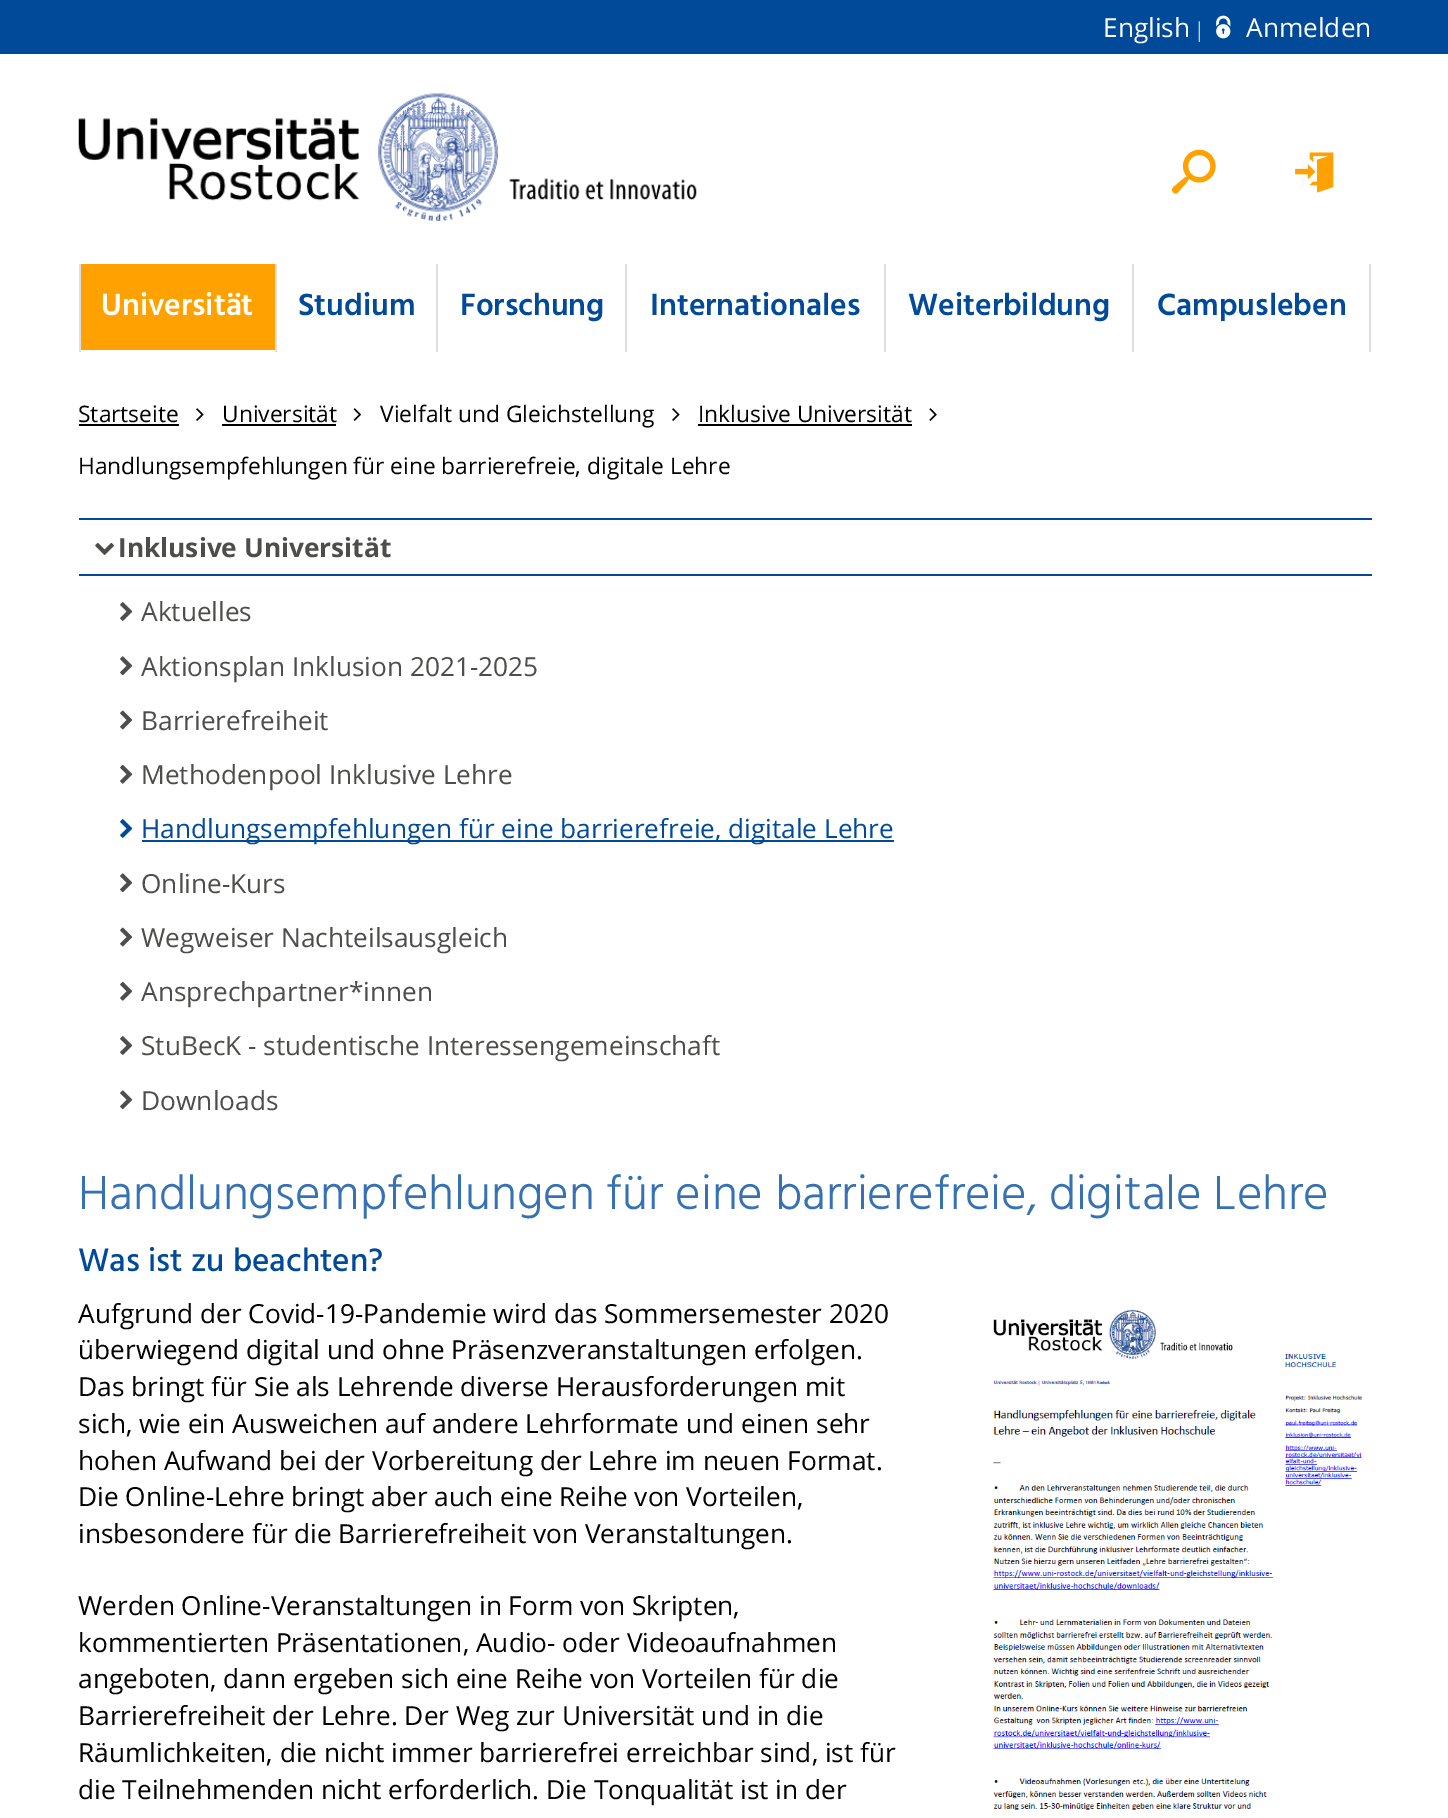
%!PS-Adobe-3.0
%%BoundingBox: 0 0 1448 1818
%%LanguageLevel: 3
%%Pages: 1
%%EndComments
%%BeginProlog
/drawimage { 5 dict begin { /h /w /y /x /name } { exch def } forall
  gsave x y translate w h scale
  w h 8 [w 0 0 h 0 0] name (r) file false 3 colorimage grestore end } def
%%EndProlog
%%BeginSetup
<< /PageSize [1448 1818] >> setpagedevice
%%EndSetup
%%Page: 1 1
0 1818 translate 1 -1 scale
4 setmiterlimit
1 setgray
0 0 1448 1818 rectfill
0 0.29 0.6 setrgbcolor
0 0 1448 54 rectfill
(images/1.raw) 1216 15 15 24 drawimage
(images/2.raw) 78 93 619 128 drawimage
(images/3.raw) 1172 149 44 45 drawimage
(images/4.raw) 1295 152 39 41 drawimage
0.875 setgray
79 264 2 88 rectfill
1 0.631 0 setrgbcolor
81 264 194 86 rectfill
0.875 setgray
275 264 2 88 rectfill
436 264 2 88 rectfill
625 264 2 88 rectfill
884 264 2 88 rectfill
1369 264 2 88 rectfill
1132 264 2 88 rectfill
0 setgray
79 424 100 2 rectfill
(images/5.raw) 196 408 8 13 drawimage
222 424 114 2 rectfill
(images/6.raw) 353 408 8 13 drawimage
(images/5.raw) 672 408 8 13 drawimage
698 424 214 2 rectfill
(images/7.raw) 929 408 8 13 drawimage
0 0.29 0.6 setrgbcolor
79 518 1293 2 rectfill
79 574 1293 2 rectfill
(images/8.raw) 95 542 19 13 drawimage
(images/9.raw) 120 602 13 19 drawimage
(images/10.raw) 120 656 13 20 drawimage
(images/11.raw) 120 710 13 20 drawimage
(images/12.raw) 120 764 13 20 drawimage
(images/13.raw) 120 819 13 19 drawimage
142 840 752 2 rectfill
(images/10.raw) 120 873 13 20 drawimage
(images/11.raw) 120 927 13 20 drawimage
(images/12.raw) 120 981 13 20 drawimage
(images/9.raw) 120 1036 13 19 drawimage
(images/10.raw) 120 1090 13 20 drawimage
(images/14.raw) 993 1309 370 501 drawimage
/OpenSans-Regular [26.25 0 0 -26.25 0 0] selectfont
1 setgray
1103 37 moveto (English) show
/LiberationSerif-Regular [22.75 0 0 -22.75 0 0] selectfont
1197 37 moveto (|) show
/OpenSans-Regular [26.25 0 0 -26.25 0 0] selectfont
1246 37 moveto (Anmelden) show
/Hind-SemiBold [31.5 0 0 -31.5 0 0] selectfont
101 315 moveto (Universität) show
0 0.29 0.6 setrgbcolor
298 315 moveto (Studium) show
460 315 moveto (Forschung) show
650 315 moveto (Internationales) show
908 315 moveto (Weiterbildung) show
1157 315 moveto (Campusleben) show
/OpenSans-Regular [22.75 0 0 -22.75 0 0] selectfont
0 setgray
78 422 moveto (Startseite) show
222 422 moveto (Universität) show
380 422 moveto (Vielfalt und Gleichstellung) show
698 422 moveto (Inklusive Universität) show
78 474 moveto (Handlungsempfehlungen für eine barrierefreie, digitale Lehre) show
/OpenSans-Bold [26.25 0 0 -26.25 0 0] selectfont
0.302 0.302 0.294 setrgbcolor
118 557 moveto (Inklusive Universität) show
/OpenSans-Regular [26.25 0 0 -26.25 0 0] selectfont
141 621 moveto (Aktuelles) show
141 676 moveto (Aktionsplan Inklusion 2021-2025) show
141 730 moveto (Barrierefreiheit) show
141 784 moveto (Methodenpool Inklusive Lehre) show
0 0.29 0.6 setrgbcolor
141 838 moveto (Handlungsempfehlungen für eine barrierefreie, digitale Lehre) show
0.302 0.302 0.294 setrgbcolor
141 893 moveto (Online-Kurs) show
141 947 moveto (Wegweiser Nachteilsausgleich) show
141 1001 moveto (Ansprechpartner*innen) show
141 1055 moveto (StuBecK - studentische Interessengemeinschaft) show
141 1110 moveto (Downloads) show
/Hind-Light [49 0 0 -49 0 0] selectfont
0.212 0.447 0.702 setrgbcolor
78 1209 moveto (Handlungsempfehlungen für eine barrierefreie, digitale Lehre) show
/Hind-Medium [33.25 0 0 -33.25 0 0] selectfont
0 0.29 0.6 setrgbcolor
78 1271 moveto (Was ist zu beachten?) show
/OpenSans-Regular [26.25 0 0 -26.25 0 0] selectfont
0 setgray
78 1323 moveto (Aufgrund der Covid-19-Pandemie wird das Sommersemester 2020) show
78 1359 moveto (überwiegend digital und ohne Präsenzveranstaltungen erfolgen.) show
78 1396 moveto (Das bringt für Sie als Lehrende diverse Herausforderungen mit) show
78 1433 moveto (sich, wie ein Ausweichen auf andere Lehrformate und einen sehr) show
78 1470 moveto (hohen Aufwand bei der Vorbereitung der Lehre im neuen Format.) show
78 1506 moveto (Die Online-Lehre bringt aber auch eine Reihe von Vorteilen,) show
78 1543 moveto (insbesondere für die Barrierefreiheit von Veranstaltungen.) show
78 1615 moveto (Werden Online-Veranstaltungen in Form von Skripten,) show
78 1652 moveto (kommentierten Präsentationen, Audio- oder Videoaufnahmen) show
78 1688 moveto (angeboten, dann ergeben sich eine Reihe von Vorteilen für die) show
78 1725 moveto (Barrierefreiheit der Lehre. Der Weg zur Universität und in die) show
78 1762 moveto (Räumlichkeiten, die nicht immer barrierefrei erreichbar sind, ist für) show
78 1799 moveto (die Teilnehmenden nicht erforderlich. Die Tonqualität ist in der) show
showpage
%%EOF
